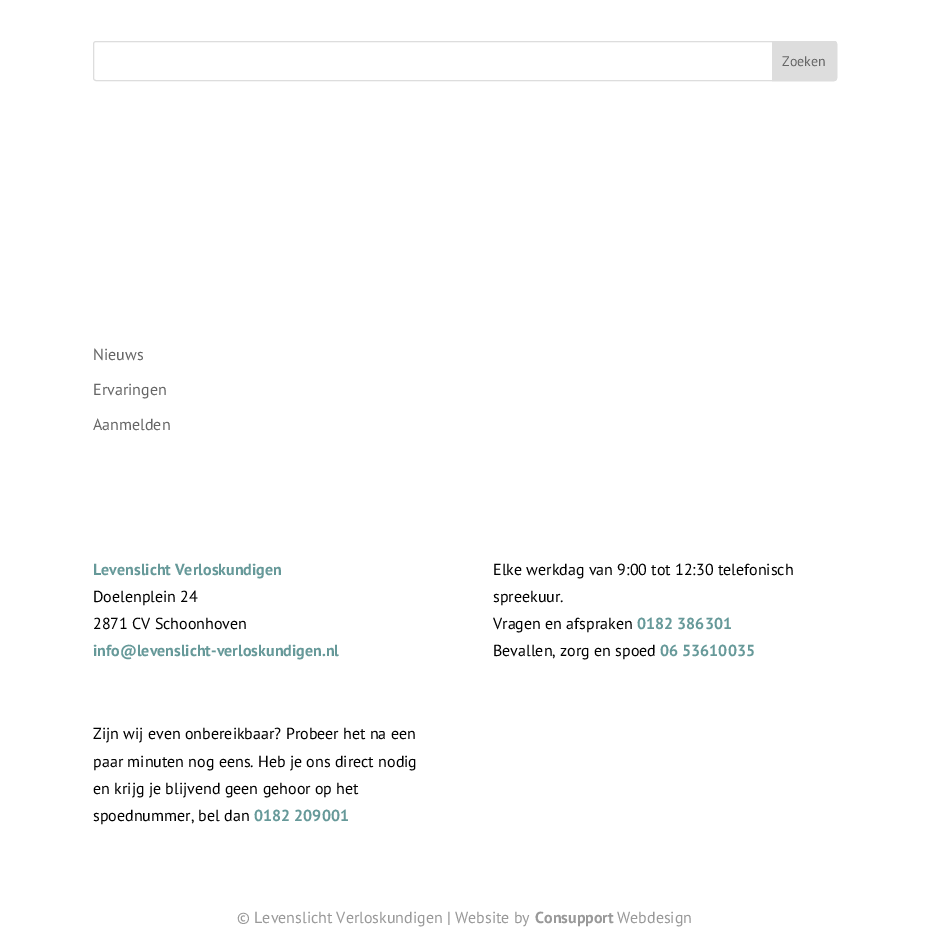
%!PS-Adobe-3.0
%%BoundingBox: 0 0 930 946
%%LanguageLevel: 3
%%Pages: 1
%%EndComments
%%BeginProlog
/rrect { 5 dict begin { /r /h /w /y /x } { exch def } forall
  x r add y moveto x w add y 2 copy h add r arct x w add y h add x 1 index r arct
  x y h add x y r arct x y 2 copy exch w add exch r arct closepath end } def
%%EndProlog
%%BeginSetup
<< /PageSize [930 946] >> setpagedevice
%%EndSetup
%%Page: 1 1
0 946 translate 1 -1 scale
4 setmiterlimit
1 setgray
0 0 930 946 rectfill
0.867 setgray
93.5 41.5 743 39 2.5 rrect stroke
newpath 772.5 41.5 moveto 834 41.5 lineto 835.5 41.5 836.5 42.5 836.5 44 curveto 836.5 78 lineto 836.5 79.5 835.5 80.5 834 80.5 curveto 772.5 80.5 lineto closepath gsave fill grestore
stroke
/PTSans-Regular [14 0 0 -14 0 0] selectfont
0.4 setgray
782 66 moveto (Zoeken) show
/PTSans-Regular [16 0 0 -16 0 0] selectfont
93 360 moveto (Nieuws) show
93 395 moveto (Ervaringen) show
93 430 moveto (Aanmelden) show
/PTSans-Bold [16 0 0 -16 0 0] selectfont
0.4 0.6 0.6 setrgbcolor
93 575 moveto (Levenslicht Verloskundigen) show
/PTSans-Regular [16 0 0 -16 0 0] selectfont
0 setgray
93 602 moveto (Doelenplein 24) show
93 629 moveto (2871 CV Schoonhoven) show
/PTSans-Bold [16 0 0 -16 0 0] selectfont
0.4 0.6 0.6 setrgbcolor
93 656 moveto (info@levenslicht-verloskundigen.nl) show
/PTSans-Regular [16 0 0 -16 0 0] selectfont
0 setgray
493 575 moveto (Elke werkdag van 9:00 tot 12:30 telefonisch) show
493 602 moveto (spreekuur.) show
493 629 moveto (Vragen en afspraken) show
/PTSans-Bold [16 0 0 -16 0 0] selectfont
0.4 0.6 0.6 setrgbcolor
637 629 moveto (0182 386301) show
/PTSans-Regular [16 0 0 -16 0 0] selectfont
0 setgray
493 656 moveto (Bevallen, zorg en spoed) show
/PTSans-Bold [16 0 0 -16 0 0] selectfont
0.4 0.6 0.6 setrgbcolor
660 656 moveto (06 53610035) show
/PTSans-Regular [16 0 0 -16 0 0] selectfont
0 setgray
93 739 moveto (Zijn wij even onbereikbaar? Probeer het na een) show
93 767 moveto (paar minuten nog eens. Heb je ons direct nodig) show
93 794 moveto (en krijg je blijvend geen gehoor op het) show
93 821 moveto (spoednummer, bel dan) show
/PTSans-Bold [16 0 0 -16 0 0] selectfont
0.4 0.6 0.6 setrgbcolor
254 821 moveto (0182 209001) show
/PTSans-Regular [16 0 0 -16 0 0] selectfont
0.6 setgray
237 923 moveto (© Levenslicht Verloskundigen | Website by) show
/PTSans-Bold [16 0 0 -16 0 0] selectfont
535 923 moveto (Consupport) show
/PTSans-Regular [16 0 0 -16 0 0] selectfont
617 923 moveto (Webdesign) show
showpage
%%EOF
